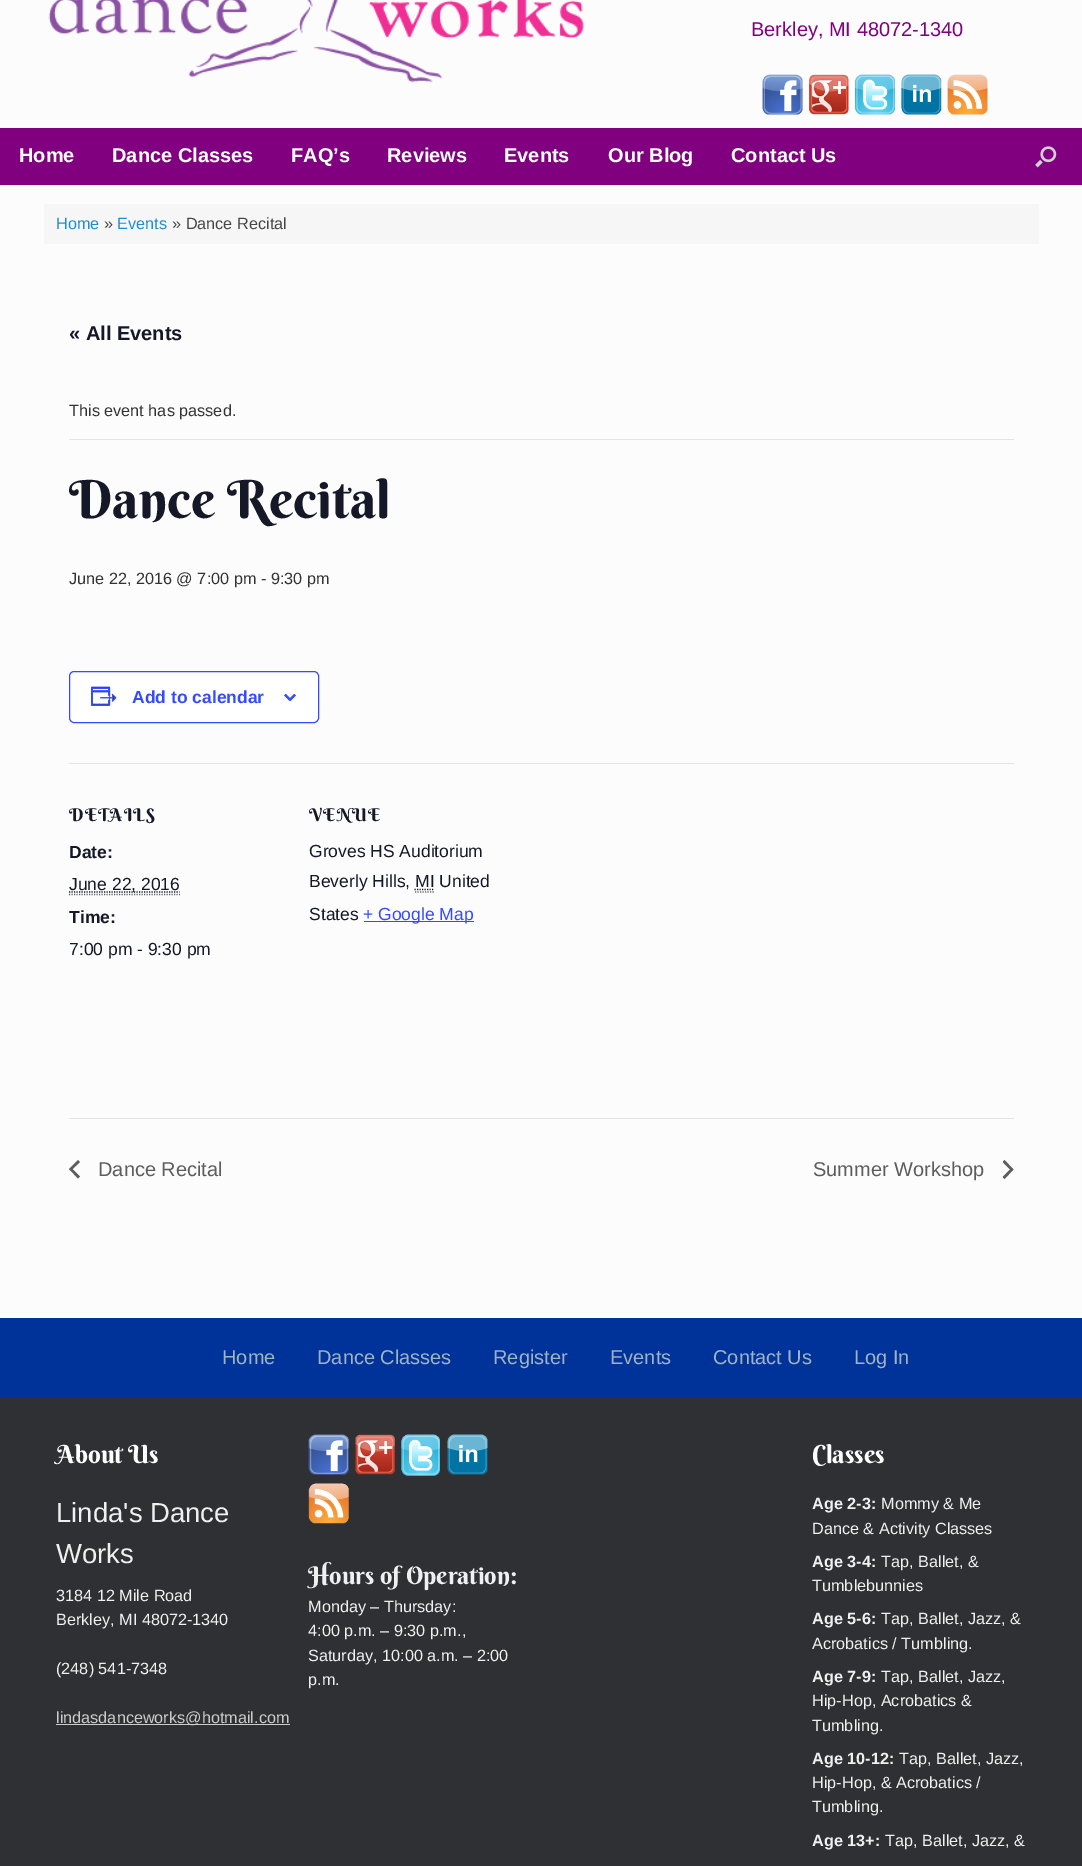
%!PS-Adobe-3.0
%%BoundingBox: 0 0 1082 1866
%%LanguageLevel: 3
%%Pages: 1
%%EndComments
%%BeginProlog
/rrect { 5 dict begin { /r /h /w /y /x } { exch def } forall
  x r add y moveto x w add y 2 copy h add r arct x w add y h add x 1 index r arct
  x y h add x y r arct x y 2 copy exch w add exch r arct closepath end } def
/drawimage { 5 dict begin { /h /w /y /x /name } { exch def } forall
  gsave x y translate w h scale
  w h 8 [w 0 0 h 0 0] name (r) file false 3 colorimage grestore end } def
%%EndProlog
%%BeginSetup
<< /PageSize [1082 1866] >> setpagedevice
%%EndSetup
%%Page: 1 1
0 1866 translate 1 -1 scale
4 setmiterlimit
0.184 0.188 0.2 setrgbcolor
0 0 1082 1866 rectfill
0.988 setgray
0 0 1082 128 rectfill
(images/1.raw) 48 0 536 83 drawimage
(images/2.raw) 762 74 41 41 drawimage
(images/3.raw) 809 74 40 41 drawimage
(images/4.raw) 855 74 40 41 drawimage
(images/5.raw) 901 74 41 41 drawimage
(images/6.raw) 947 74 41 41 drawimage
0.502 0 0.502 setrgbcolor
0 128 1082 57 rectfill
(images/7.raw) 1035 146 22 22 drawimage
0.988 setgray
0 185 1082 1133 rectfill
0.965 setgray
44 204 995 40 rectfill
0.894 setgray
69 439 945 1 rectfill
1 setgray
69.5 671.5 249 51 4.5 rrect gsave fill grestore
0.2 0.29 1 setrgbcolor
stroke
(images/8.raw) 91 686 26 20 drawimage
(images/9.raw) 284 694 12 7 drawimage
0.894 setgray
69 763 945 1 rectfill
0.4 setgray
1.2 setlinewidth
[1.25 1.25] 0 setdash
newpath 69 894.5 moveto 180 894.5 lineto stroke
0.078 0.094 0.153 setrgbcolor
newpath 69 892 moveto 179.5 892 lineto stroke
0.4 setgray
newpath 415 892 moveto 434 892 lineto stroke
0.078 0.094 0.153 setrgbcolor
newpath 414.5 889.5 moveto 434 889.5 lineto stroke
0.2 0.29 1 setrgbcolor
364 921 110 1 rectfill
0.894 setgray
69 1118 945 1 rectfill
0.365 setgray
newpath 80 1176.5 moveto 78 1178.5 lineto 69 1169 lineto 78 1160 lineto 80 1162 lineto 72.5 1169 lineto closepath fill
gsave
1003 1160 11 19 rectclip
newpath 1002.5 1162 moveto 1004.5 1160 lineto 1013.5 1169.5 lineto 1004.5 1179 lineto 1002.5 1177 lineto 1010 1169.5 lineto closepath fill
grestore
0 0.2 0.6 setrgbcolor
0 1318 1082 80 rectfill
0.8 setgray
56 1724 234 1 rectfill
(images/10.raw) 308 1434 41 41 drawimage
(images/11.raw) 355 1434 40 41 drawimage
(images/12.raw) 401 1434 39 42 drawimage
(images/13.raw) 447 1434 41 41 drawimage
(images/14.raw) 308 1483 41 41 drawimage
/LiberationSans-Regular [20 0 0 -20 0 0] selectfont
0.502 0 0.502 setrgbcolor
751 36 moveto (Berkley, MI 48072-1340) show
/LiberationSans-Bold [20 0 0 -20 0 0] selectfont
1 setgray
19 162 moveto (Home) show
112 162 moveto (Dance Classes) show
291 162 moveto (FAQ’s) show
387 162 moveto (Reviews) show
504 162 moveto (Events) show
608 162 moveto (Our Blog) show
731 162 moveto (Contact Us) show
/LiberationSans-Regular [16.25 0 0 -16.25 0 0] selectfont
0.141 0.549 0.784 setrgbcolor
56 229 moveto (Home) show
0.278 setgray
104 229 moveto (») show
0.141 0.549 0.784 setrgbcolor
117 229 moveto (Events) show
0.278 setgray
172 229 moveto (» Dance Recital) show
/LiberationSans-Bold [20 0 0 -20 0 0] selectfont
0.078 0.094 0.153 setrgbcolor
69 340 moveto (« All Events) show
/LiberationSans-Regular [16.25 0 0 -16.25 0 0] selectfont
0.2 setgray
69 416 moveto (This event has passed.) show
/BerkshireSwash-Regular [52.5 0 0 -52.5 0 0] selectfont
0.078 0.094 0.153 setrgbcolor
69 518 moveto (Dance Recital) show
/LiberationSans-Regular [16.25 0 0 -16.25 0 0] selectfont
0.2 setgray
69 584 moveto (June 22, 2016 @ 7:00 pm - 9:30 pm) show
/LiberationSans-Bold [17.5 0 0 -17.5 0 0] selectfont
0.2 0.29 1 setrgbcolor
132 703 moveto (Add to calendar) show
/BerkshireSwash-Regular [17.5 0 0 -17.5 0 0] selectfont
0.078 0.094 0.153 setrgbcolor
69 821 moveto 1.25 0 (DETAILS) ashow
/LiberationSans-Bold [17.5 0 0 -17.5 0 0] selectfont
69 858 moveto (Date:) show
/LiberationSans-Regular [17.5 0 0 -17.5 0 0] selectfont
69 890 moveto (June 22, 2016) show
/LiberationSans-Bold [17.5 0 0 -17.5 0 0] selectfont
69 923 moveto (Time:) show
/LiberationSans-Regular [17.5 0 0 -17.5 0 0] selectfont
69 955 moveto (7:00 pm - 9:30 pm) show
/BerkshireSwash-Regular [17.5 0 0 -17.5 0 0] selectfont
309 821 moveto 1.25 0 (VENUE) ashow
/LiberationSans-Regular [17.5 0 0 -17.5 0 0] selectfont
309 857 moveto (Groves HS Auditorium) show
309 887 moveto (Beverly Hills, MI United) show
309 920 moveto (States) show
0.2 0.29 1 setrgbcolor
363 920 moveto (+ Google Map) show
/LiberationSans-Regular [20 0 0 -20 0 0] selectfont
0.365 setgray
98 1176 moveto (Dance Recital) show
813 1176 moveto (Summer Workshop) show
0.627 0.702 0.761 setrgbcolor
222 1364 moveto (Home) show
317 1364 moveto (Dance Classes) show
493 1364 moveto (Register) show
610 1364 moveto (Events) show
713 1364 moveto (Contact Us) show
854 1364 moveto (Log In) show
/BerkshireSwash-Regular [25 0 0 -25 0 0] selectfont
1 setgray
56 1463 moveto (About Us) show
/LiberationSans-Regular [27.5 0 0 -27.5 0 0] selectfont
0.941 setgray
56 1522 moveto (Linda's Dance) show
56 1563 moveto (Works) show
/LiberationSans-Regular [16.25 0 0 -16.25 0 0] selectfont
56 1601 moveto (3184 12 Mile Road) show
56 1625 moveto (Berkley, MI 48072-1340) show
56 1674 moveto (\(248\) 541-7348) show
0.8 setgray
56 1723 moveto (lindasdanceworks@hotmail.com) show
/BerkshireSwash-Regular [24.4 0 0 -24.4 0 0] selectfont
0.941 setgray
308 1584 moveto (Hours of Operation:) show
/LiberationSans-Regular [16.25 0 0 -16.25 0 0] selectfont
308 1612 moveto (Monday – Thursday:) show
308 1636 moveto (4:00 p.m. – 9:30 p.m.,) show
308 1661 moveto (Saturday, 10:00 a.m. – 2:00) show
308 1685 moveto (p.m.) show
/BerkshireSwash-Regular [25 0 0 -25 0 0] selectfont
1 setgray
812 1463 moveto (Classes) show
/LiberationSans-Bold [16.25 0 0 -16.25 0 0] selectfont
0.941 setgray
812 1509 moveto (Age 2-3:) show
/LiberationSans-Regular [16.25 0 0 -16.25 0 0] selectfont
881 1509 moveto (Mommy & Me) show
812 1534 moveto (Dance & Activity Classes) show
/LiberationSans-Bold [16.25 0 0 -16.25 0 0] selectfont
812 1567 moveto (Age 3-4:) show
/LiberationSans-Regular [16.25 0 0 -16.25 0 0] selectfont
881 1567 moveto (Tap, Ballet, &) show
812 1591 moveto (Tumblebunnies) show
/LiberationSans-Bold [16.25 0 0 -16.25 0 0] selectfont
812 1624 moveto (Age 5-6:) show
/LiberationSans-Regular [16.25 0 0 -16.25 0 0] selectfont
881 1624 moveto (Tap, Ballet, Jazz, &) show
812 1649 moveto (Acrobatics / Tumbling.) show
/LiberationSans-Bold [16.25 0 0 -16.25 0 0] selectfont
812 1682 moveto (Age 7-9:) show
/LiberationSans-Regular [16.25 0 0 -16.25 0 0] selectfont
881 1682 moveto (Tap, Ballet, Jazz,) show
812 1706 moveto (Hip-Hop, Acrobatics &) show
812 1731 moveto (Tumbling.) show
/LiberationSans-Bold [16.25 0 0 -16.25 0 0] selectfont
812 1764 moveto (Age 10-12:) show
/LiberationSans-Regular [16.25 0 0 -16.25 0 0] selectfont
899 1764 moveto (Tap, Ballet, Jazz,) show
812 1788 moveto (Hip-Hop, & Acrobatics /) show
812 1812 moveto (Tumbling.) show
/LiberationSans-Bold [16.25 0 0 -16.25 0 0] selectfont
812 1846 moveto (Age 13+:) show
/LiberationSans-Regular [16.25 0 0 -16.25 0 0] selectfont
885 1846 moveto (Tap, Ballet, Jazz, &) show
showpage
%%EOF
